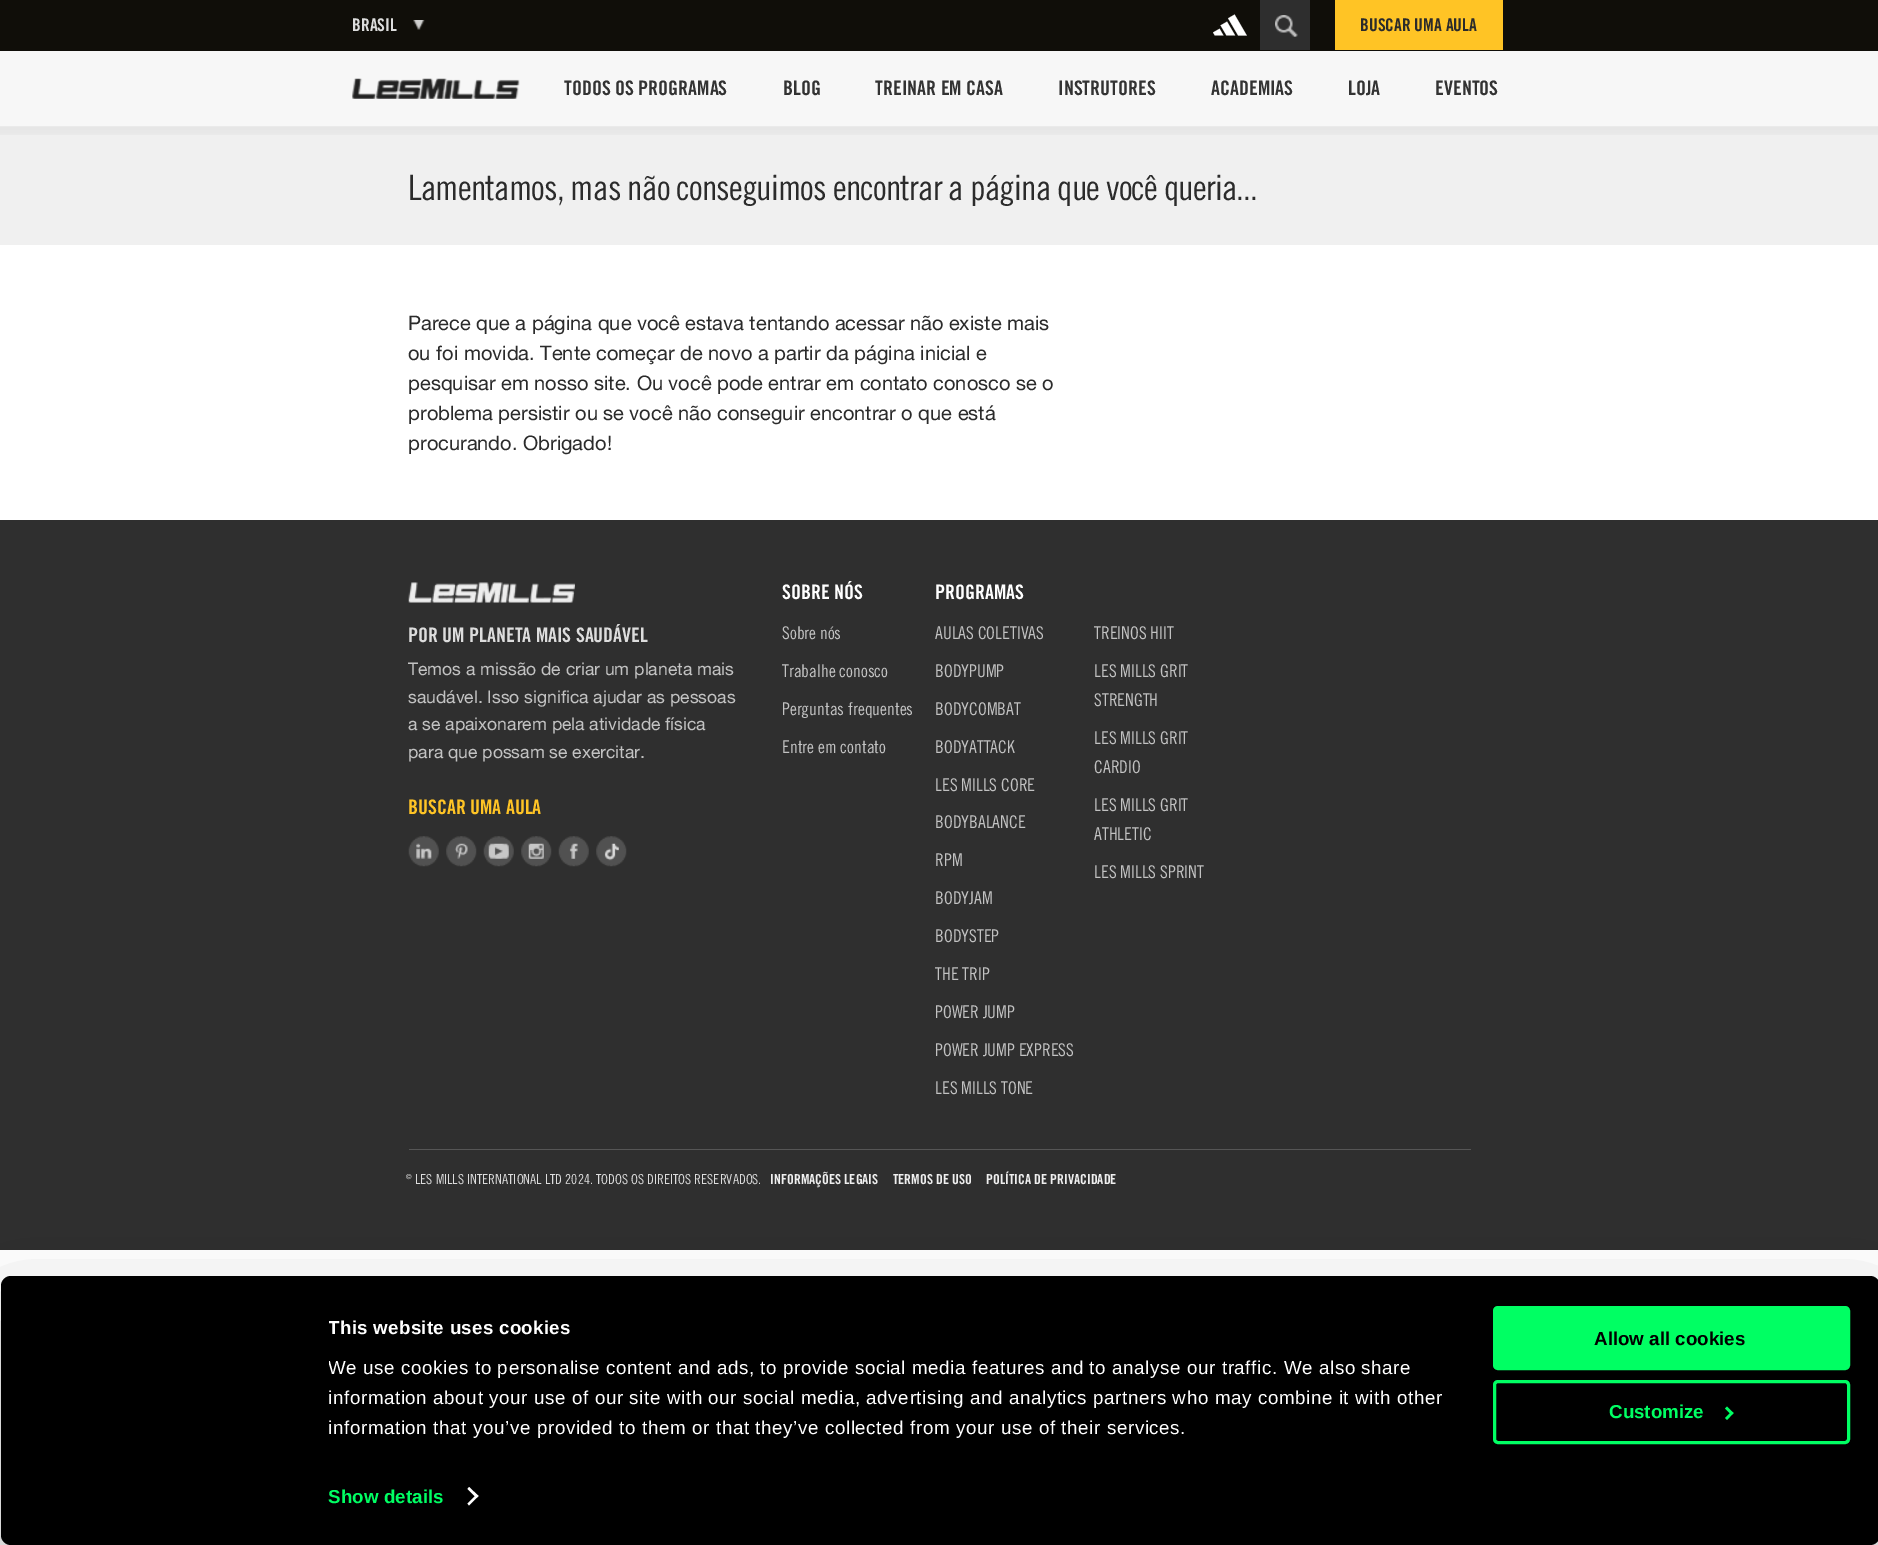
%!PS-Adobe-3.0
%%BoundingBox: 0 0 1878 1545
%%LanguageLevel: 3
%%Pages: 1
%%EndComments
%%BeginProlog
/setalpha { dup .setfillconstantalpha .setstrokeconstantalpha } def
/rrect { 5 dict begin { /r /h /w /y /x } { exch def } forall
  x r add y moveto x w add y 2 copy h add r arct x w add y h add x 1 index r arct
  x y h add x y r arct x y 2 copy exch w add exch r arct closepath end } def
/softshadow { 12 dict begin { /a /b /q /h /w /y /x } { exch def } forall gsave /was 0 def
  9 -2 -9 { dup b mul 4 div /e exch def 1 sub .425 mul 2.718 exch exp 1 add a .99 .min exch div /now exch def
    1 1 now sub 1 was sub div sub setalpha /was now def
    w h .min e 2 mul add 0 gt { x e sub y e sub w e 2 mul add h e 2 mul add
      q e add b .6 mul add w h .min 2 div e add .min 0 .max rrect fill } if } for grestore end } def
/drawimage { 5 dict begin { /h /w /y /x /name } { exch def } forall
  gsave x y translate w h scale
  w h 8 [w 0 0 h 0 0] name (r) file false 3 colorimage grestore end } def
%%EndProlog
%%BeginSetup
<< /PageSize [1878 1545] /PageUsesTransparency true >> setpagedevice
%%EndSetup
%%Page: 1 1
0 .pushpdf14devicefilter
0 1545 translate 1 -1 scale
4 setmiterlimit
1 setgray
0 0 1878 1545 rectfill
0.063 0.055 0.035 setrgbcolor
0 0 1878 51 rectfill
(images/1.raw) 413 20 12 10 drawimage
(images/2.raw) 1213 14 34 22 drawimage
0.18 setgray
1260 0 50 50 rectfill
(images/3.raw) 1275 15 23 22 drawimage
1 0.769 0.145 setrgbcolor
1335 0 168 50 rectfill
0.969 setgray
0 51 1878 75 rectfill
(images/4.raw) 352 78 168 21 drawimage
0.941 setgray
0 126 1878 119 rectfill
(images/5.raw) 0 126 1878 9 drawimage
0.184 setgray
0 520 1878 730 rectfill
(images/6.raw) 408 582 167 21 drawimage
(images/7.raw) 408 836 31 31 drawimage
(images/8.raw) 446 836 31 31 drawimage
(images/9.raw) 483 836 31 31 drawimage
(images/10.raw) 521 836 31 31 drawimage
(images/11.raw) 558 836 31 31 drawimage
(images/12.raw) 596 836 31 31 drawimage
0.337 setgray
409 1149 1062 1 rectfill
0 setgray
1 1314 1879 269 10 44 0.3 softshadow
1 1276 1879 269 10 rrect fill
1 setgray
newpath 469 1487 moveto 478.5 1496 lineto 476.5 1498 lineto 467.5 1489 lineto closepath fill
newpath 476.5 1494.5 moveto 478.5 1496 lineto 469 1505.5 lineto 467.5 1503.5 lineto closepath fill
0 1 0.388 setrgbcolor
1494.5 1307.5 354 61 3.5 rrect gsave fill grestore
3 setlinewidth
stroke
1494.5 1381.5 354 61 3.5 rrect stroke
newpath 1727 1406.5 moveto 1733.5 1413 lineto 1731.5 1415 lineto 1725 1408.5 lineto closepath fill
newpath 1731.5 1411.5 moveto 1733.5 1413 lineto 1727 1420 lineto 1725 1418 lineto closepath fill
/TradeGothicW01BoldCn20-Bold [17.5 0 0 -17.5 0 0] selectfont
0.867 setgray
352 31 moveto (BRASIL) show
0.169 setgray
1360 31 moveto (BUSCAR UMA AULA) show
/TradeGothicW01BoldCn20-Bold [20 0 0 -20 0 0] selectfont
0.2 setgray
564 95 moveto (TODOS OS PROGRAMAS) show
783 95 moveto (BLOG) show
875 95 moveto (TREINAR EM CASA) show
1058 95 moveto (INSTRUTORES) show
1211 95 moveto (ACADEMIAS) show
1348 95 moveto (LOJA) show
1435 95 moveto (EVENTOS) show
/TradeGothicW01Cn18-Regular [35 0 0 -35 0 0] selectfont
0.169 setgray
408 200 moveto -0.88 0 (Lamentamos, mas não conseguimos encontrar a página que você queria...) ashow
/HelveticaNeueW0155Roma-Regular [20 0 0 -20 0 0] selectfont
408 330 moveto (Parece que a página que você estava tentando acessar não existe mais) show
408 360 moveto (ou foi movida. Tente começar de novo a partir da página inicial e) show
408 390 moveto (pesquisar em nosso site. Ou você pode entrar em contato conosco se o) show
408 420 moveto (problema persistir ou se você não conseguir encontrar o que está) show
408 450 moveto (procurando. Obrigado!) show
/TradeGothicW01BoldCn20-Bold [20 0 0 -20 0 0] selectfont
0.867 setgray
408 642 moveto (POR UM PLANETA MAIS SAUDÁVEL) show
/HelveticaNeueW0155Roma-Regular [17.5 0 0 -17.5 0 0] selectfont
0.761 setgray
408 675 moveto (Temos a missão de criar um planeta mais) show
408 703 moveto (saudável. Isso significa ajudar as pessoas) show
408 730 moveto (a se apaixonarem pela atividade física) show
408 758 moveto (para que possam se exercitar.) show
/TradeGothicW01BoldCn20-Bold [20 0 0 -20 0 0] selectfont
1 0.769 0.145 setrgbcolor
408 814 moveto (BUSCAR UMA AULA) show
1 setgray
782 599 moveto (SOBRE NÓS) show
/TradeGothicW01Cn18-Regular [17.5 0 0 -17.5 0 0] selectfont
0.761 setgray
782 639 moveto (Sobre nós) show
782 677 moveto (Trabalhe conosco) show
782 715 moveto (Perguntas frequentes) show
782 753 moveto (Entre em contato) show
/TradeGothicW01BoldCn20-Bold [20 0 0 -20 0 0] selectfont
1 setgray
935 599 moveto (PROGRAMAS) show
/TradeGothicW01Cn18-Regular [17.5 0 0 -17.5 0 0] selectfont
0.761 setgray
935 639 moveto (AULAS COLETIVAS) show
935 677 moveto (BODYPUMP) show
935 715 moveto (BODYCOMBAT) show
935 753 moveto (BODYATTACK) show
935 791 moveto (LES MILLS CORE) show
935 828 moveto (BODYBALANCE) show
935 866 moveto (RPM) show
935 904 moveto (BODYJAM) show
935 942 moveto (BODYSTEP) show
935 980 moveto (THE TRIP) show
935 1018 moveto (POWER JUMP) show
935 1056 moveto (POWER JUMP EXPRESS) show
935 1094 moveto (LES MILLS TONE) show
1094 639 moveto (TREINOS HIIT) show
1094 677 moveto (LES MILLS GRIT) show
1094 706 moveto (STRENGTH) show
1094 744 moveto (LES MILLS GRIT) show
1094 773 moveto (CARDIO) show
1094 811 moveto (LES MILLS GRIT) show
1094 840 moveto (ATHLETIC) show
1094 878 moveto (LES MILLS SPRINT) show
/TradeGothicW01Cn18-Regular [7 0 0 -7 0 0] selectfont
0.867 setgray
406 1179 moveto (©) show
/TradeGothicW01Cn18-Regular [13.75 0 0 -13.75 0 0] selectfont
415 1184 moveto (LES MILLS INTERNATIONAL LTD 2024. TODOS OS DIREITOS RESERVADOS.) show
/TradeGothicW01BoldCn20-Bold [13.75 0 0 -13.75 0 0] selectfont
0.937 setgray
770 1184 moveto (INFORMAÇÕES LEGAIS) show
893 1184 moveto (TERMOS DE USO) show
986 1184 moveto (POLÍTICA DE PRIVACIDADE) show
gsave
329 1314 1156 129 rectclip
/LiberationSans-Bold [18.75 0 0 -18.75 0 0] selectfont
1 setgray
328 1334 moveto 0.3 0 (This website uses cookies) ashow
/LiberationSans-Regular [18.75 0 0 -18.75 0 0] selectfont
328 1374 moveto 0.62 0 (We use cookies to personalise content and ads, to provide social media features and to analyse our traffic. We also share) ashow
328 1404 moveto 0.62 0 (information about your use of our site with our social media, advertising and analytics partners who may combine it with other) ashow
328 1434 moveto 0.62 0 (information that you’ve provided to them or that they’ve collected from your use of their services.) ashow
grestore
/LiberationSans-Bold [18.75 0 0 -18.75 0 0] selectfont
0 1 0.388 setrgbcolor
328 1503 moveto 0.1 0 (Show details) ashow
0 setgray
1594 1345 moveto (Allow all cookies) show
0 1 0.388 setrgbcolor
1609 1418 moveto (Customize) show
.poppdf14devicefilter showpage
%%EOF
